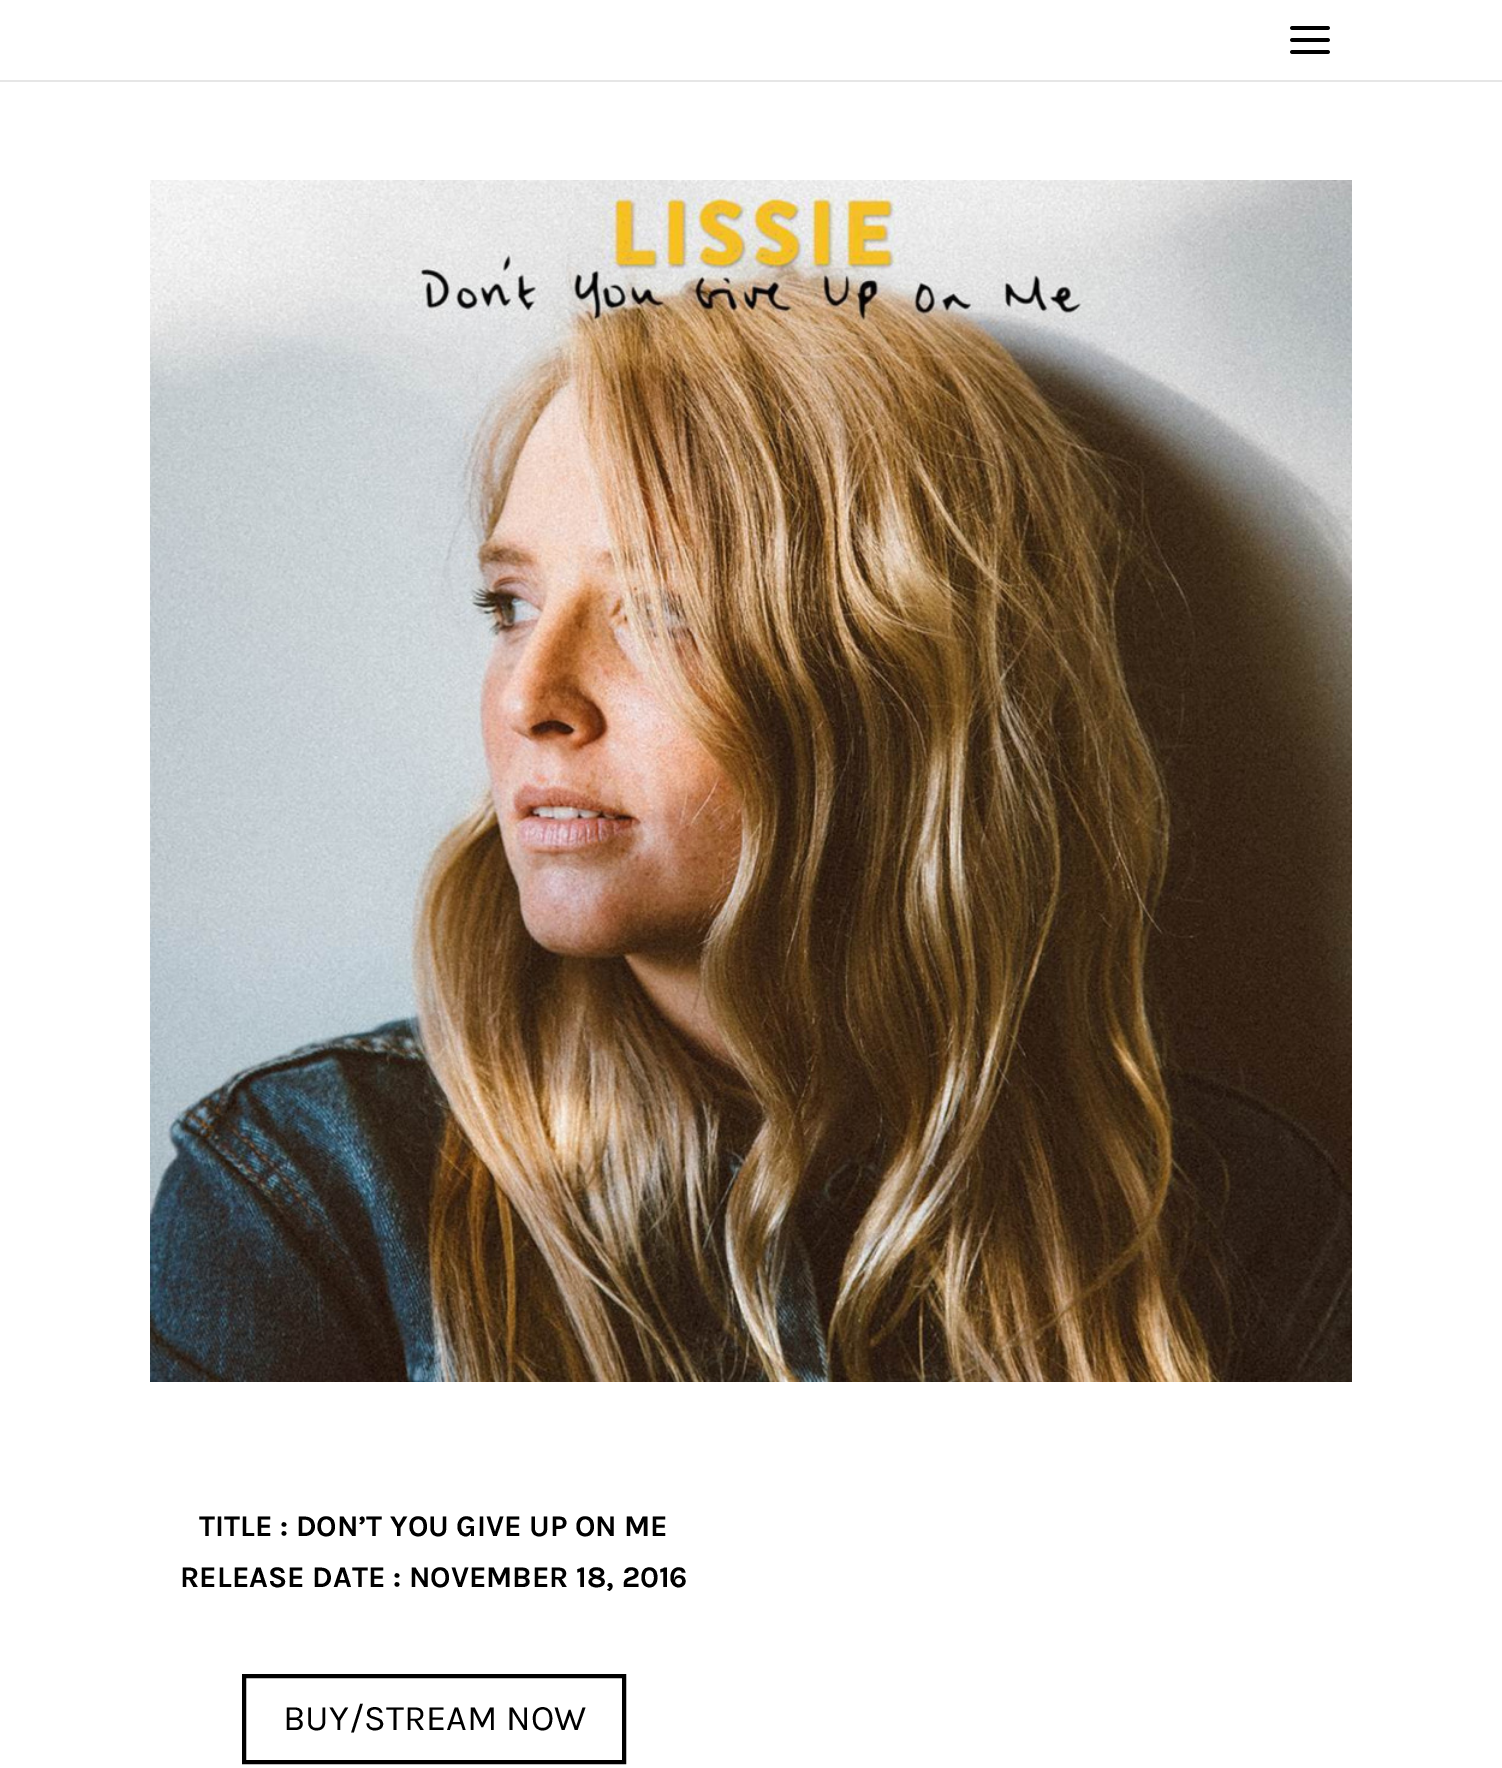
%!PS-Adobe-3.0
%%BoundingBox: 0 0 1502 1768
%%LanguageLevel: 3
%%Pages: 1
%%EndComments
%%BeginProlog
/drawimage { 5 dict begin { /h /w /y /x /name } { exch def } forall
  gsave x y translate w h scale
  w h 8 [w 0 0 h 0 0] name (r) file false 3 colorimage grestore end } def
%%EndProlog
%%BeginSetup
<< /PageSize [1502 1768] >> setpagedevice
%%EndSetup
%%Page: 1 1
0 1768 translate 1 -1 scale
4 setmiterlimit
1 setgray
0 0 1502 1768 rectfill
0.902 setgray
0 80 1502 2 rectfill
(images/1.raw) 1290 26 40 28 drawimage
(images/2.raw) 150 180 1202 1202 drawimage
0 setgray
4 setlinewidth
244 1676 380 86 rectstroke
/Karla-Bold [30 0 0 -30 0 0] selectfont
199 1536 moveto (TITLE : DON’T YOU GIVE UP ON ME) show
180 1587 moveto (RELEASE DATE : NOVEMBER 18, 2016) show
/Karla-Regular [36 0 0 -36 0 0] selectfont
283 1730 moveto (BUY/STREAM NOW) show
showpage
%%EOF
